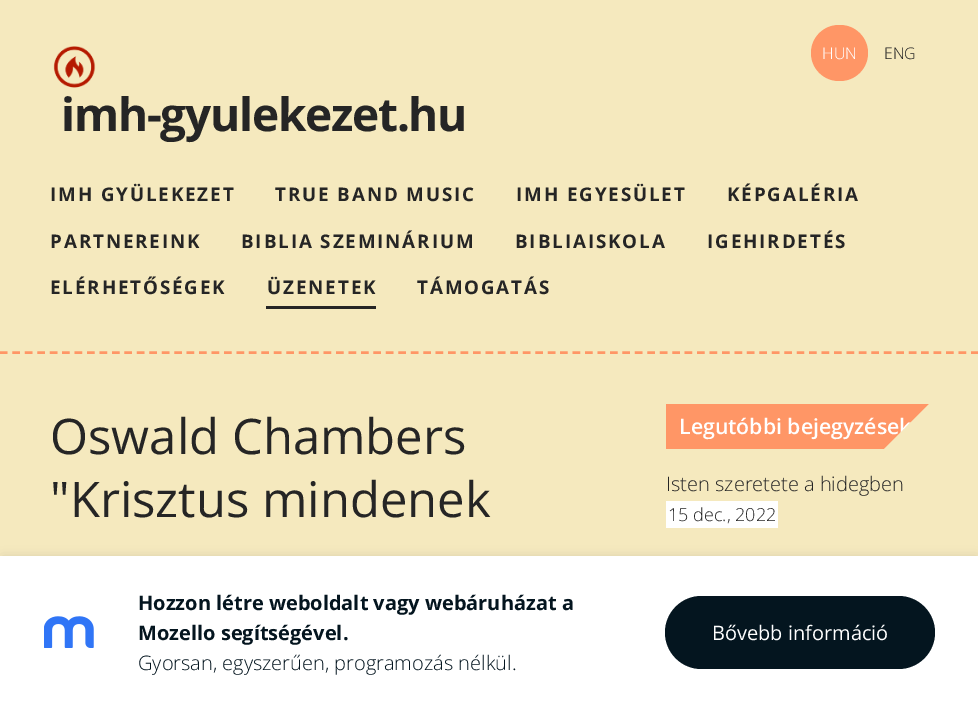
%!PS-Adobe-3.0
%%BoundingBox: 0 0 978 708
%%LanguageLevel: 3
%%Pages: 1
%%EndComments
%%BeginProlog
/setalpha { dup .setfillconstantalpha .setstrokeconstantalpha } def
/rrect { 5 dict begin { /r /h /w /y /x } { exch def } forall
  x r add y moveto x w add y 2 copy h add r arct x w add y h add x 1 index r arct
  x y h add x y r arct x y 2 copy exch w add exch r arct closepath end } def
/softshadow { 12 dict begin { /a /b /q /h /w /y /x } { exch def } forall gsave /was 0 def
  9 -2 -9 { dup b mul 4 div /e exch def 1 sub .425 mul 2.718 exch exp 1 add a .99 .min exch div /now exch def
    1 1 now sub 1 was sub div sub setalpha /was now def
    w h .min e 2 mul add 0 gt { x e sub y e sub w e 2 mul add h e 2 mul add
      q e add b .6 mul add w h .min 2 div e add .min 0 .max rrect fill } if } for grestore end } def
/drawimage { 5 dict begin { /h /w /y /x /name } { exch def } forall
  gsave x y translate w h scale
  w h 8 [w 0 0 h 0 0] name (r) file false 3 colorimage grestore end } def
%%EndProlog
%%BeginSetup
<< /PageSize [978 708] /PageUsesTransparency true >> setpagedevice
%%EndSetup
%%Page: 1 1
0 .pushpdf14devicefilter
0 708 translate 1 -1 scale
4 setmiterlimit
0.961 0.914 0.745 setrgbcolor
0 0 978 708 rectfill
1 0.588 0.4 setrgbcolor
2.5 setlinewidth
[7.5 4.95] 0 setdash
newpath 0 352.5 moveto 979 352.5 lineto stroke
811 25 57 56 28 rrect fill
(images/1.raw) 53 46 43 42 drawimage
0.145 setgray
266 306 110 3 rectfill
1 0.588 0.4 setrgbcolor
666 404 263 45 rectfill
1 setgray
666 501 112 27 rectfill
0 setgray
3 559 973 147 0 6 0.17 softshadow
1 setgray
0 556 978 152 rectfill
(images/2.raw) 44 616 50 32 drawimage
0.016 0.082 0.122 setrgbcolor
665 596 270 73 36.5 rrect fill
/OpenSans-Light [16 0 0 -16 0 0] selectfont
1 setgray
822 59 moveto (HUN) show
0.145 setgray
884 59 moveto (ENG) show
/OpenSans-Bold [46 0 0 -46 0 0] selectfont
61 131 moveto -1.25 0 (imh-gyulekezet.hu) ashow
/OpenSans-Bold [18.75 0 0 -18.75 0 0] selectfont
50 201 moveto 1.9 0 (IMH GYÜLEKEZET) ashow
275 201 moveto 1.9 0 (TRUE BAND MUSIC) ashow
516 201 moveto 1.9 0 (IMH EGYESÜLET) ashow
727 201 moveto 1.9 0 (KÉPGALÉRIA) ashow
50 248 moveto 1.9 0 (PARTNEREINK) ashow
241 248 moveto 1.9 0 (BIBLIA SZEMINÁRIUM) ashow
515 248 moveto 1.9 0 (BIBLIAISKOLA) ashow
707 248 moveto 1.9 0 (IGEHIRDETÉS) ashow
50 294 moveto 1.9 0 (ELÉRHETŐSÉGEK) ashow
267 294 moveto 1.9 0 (ÜZENETEK) ashow
417 294 moveto 1.9 0 (TÁMOGATÁS) ashow
/OpenSans-Regular [49 0 0 -49 0 0] selectfont
50 454 moveto (Oswald Chambers) show
50 517 moveto ("Krisztus mindenek) show
/OpenSans-SemiBold [21.25 0 0 -21.25 0 0] selectfont
1 setgray
679 434 moveto (Legutóbbi bejegyzések) show
0.961 0.914 0.745 setrgbcolor
newpath 929 404 moveto 929 454 lineto 879 454 lineto closepath fill
/OpenSans-Light [20 0 0 -20 0 0] selectfont
0.145 setgray
666 491 moveto (Isten szeretete a hidegben) show
/OpenSans-Light [18 0 0 -18 0 0] selectfont
668 521 moveto (15 dec., 2022) show
/OpenSans-Bold [20 0 0 -20 0 0] selectfont
0.016 0.082 0.122 setrgbcolor
138 610 moveto (Hozzon létre weboldalt vagy webáruházat a) show
138 640 moveto (Mozello segítségével.) show
/OpenSans-Light [20 0 0 -20 0 0] selectfont
138 670 moveto (Gyorsan, egyszerűen, programozás nélkül.) show
/OpenSans-Regular [20 0 0 -20 0 0] selectfont
1 setgray
712 640 moveto (Bővebb információ) show
.poppdf14devicefilter showpage
%%EOF
